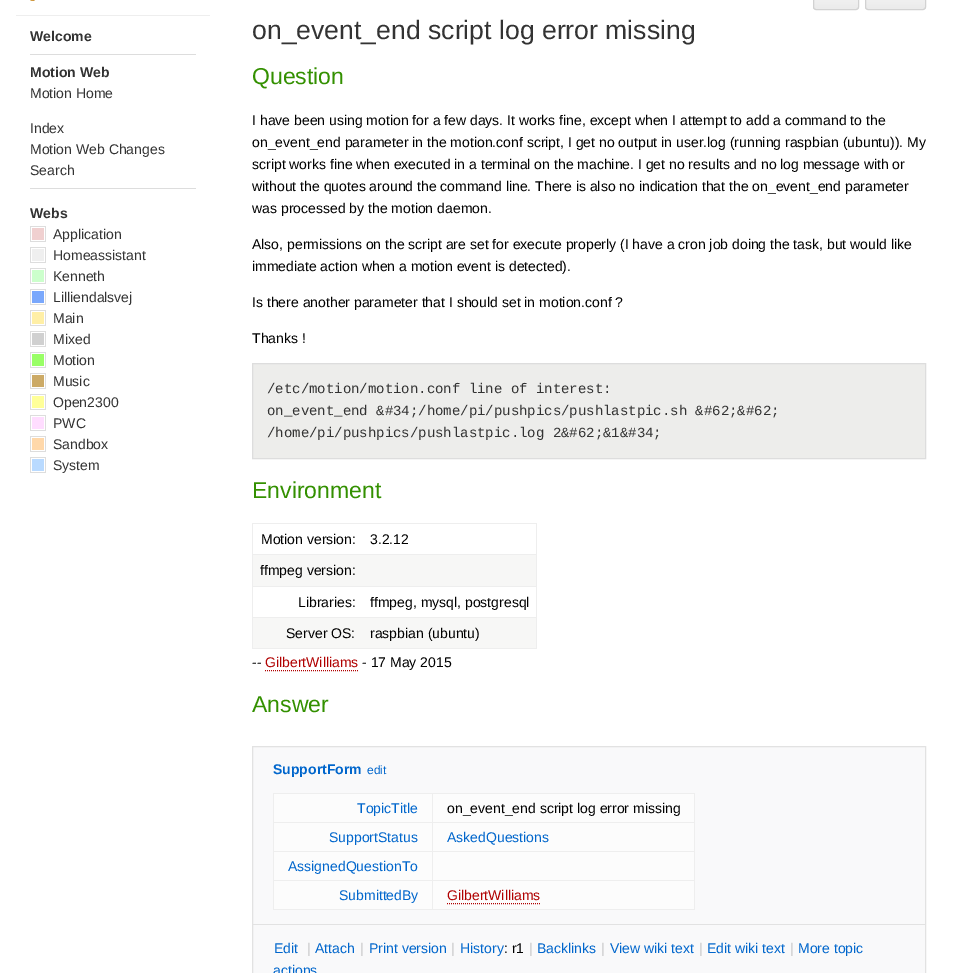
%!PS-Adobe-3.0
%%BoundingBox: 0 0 954 973
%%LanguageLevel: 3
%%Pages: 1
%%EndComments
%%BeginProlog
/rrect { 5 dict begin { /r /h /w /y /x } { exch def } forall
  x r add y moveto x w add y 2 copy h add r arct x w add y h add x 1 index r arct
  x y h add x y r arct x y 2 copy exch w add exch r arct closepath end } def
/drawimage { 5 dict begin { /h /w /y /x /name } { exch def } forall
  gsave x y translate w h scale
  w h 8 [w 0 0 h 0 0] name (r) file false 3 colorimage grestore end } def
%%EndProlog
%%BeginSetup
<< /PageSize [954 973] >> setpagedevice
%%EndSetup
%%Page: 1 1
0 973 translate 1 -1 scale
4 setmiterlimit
1 setgray
0 0 954 973 rectfill
0.933 setgray
16 15 194 1 rectfill
(images/1.raw) 30 0 5 1 drawimage
0.867 setgray
30 54 166 1 rectfill
30 188 166 1 rectfill
0.941 0.816 0.816 setrgbcolor
32 228 12 12 rectfill
(images/2.raw) 30 226 16 16 drawimage
0.937 setgray
32 249 12 12 rectfill
(images/3.raw) 30 247 16 16 drawimage
0.8 1 0.8 setrgbcolor
32 270 12 12 rectfill
(images/4.raw) 30 268 16 16 drawimage
0.478 0.659 0.988 setrgbcolor
32 291 12 12 rectfill
(images/5.raw) 30 289 16 16 drawimage
1 0.937 0.651 setrgbcolor
32 312 12 12 rectfill
(images/6.raw) 30 310 16 16 drawimage
0.816 setgray
32 333 12 12 rectfill
(images/7.raw) 30 331 16 16 drawimage
0.6 1 0.4 setrgbcolor
32 354 12 12 rectfill
(images/8.raw) 30 352 16 16 drawimage
0.8 0.667 0.4 setrgbcolor
32 375 12 12 rectfill
(images/9.raw) 30 373 16 16 drawimage
1 1 0.6 setrgbcolor
32 396 12 12 rectfill
(images/10.raw) 30 394 16 16 drawimage
1 0.867 1 setrgbcolor
32 417 12 12 rectfill
(images/11.raw) 30 415 16 16 drawimage
1 0.847 0.667 setrgbcolor
32 438 12 12 rectfill
(images/12.raw) 30 436 16 16 drawimage
0.725 0.855 1 setrgbcolor
32 459 12 12 rectfill
(images/13.raw) 30 457 16 16 drawimage
gsave
813 -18 46 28 3 rrect clip newpath
gsave newpath 813 0 moveto 859 0 lineto 859 9 lineto 813 9 lineto closepath clip newpath
<< /ShadingType 2 /ColorSpace /DeviceRGB /Coords [836 -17 836 9] /Extend [true true] /Function << /FunctionType 2 /Domain [0 1] /C0 [0.973 0.973 0.973] /C1 [0.922 0.922 0.922] /N 1 >> >> shfill grestore
grestore
0.824 setgray
813.5 -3.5 45 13 2.5 rrect stroke
gsave
865 -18 61 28 3 rrect clip newpath
gsave newpath 865 0 moveto 926 0 lineto 926 9 lineto 865 9 lineto closepath clip newpath
<< /ShadingType 2 /ColorSpace /DeviceRGB /Coords [896 -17 896 9] /Extend [true true] /Function << /FunctionType 2 /Domain [0 1] /C0 [0.973 0.973 0.973] /C1 [0.922 0.922 0.922] /N 1 >> >> shfill grestore
grestore
865.5 -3.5 60 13 2.5 rrect stroke
0.929 0.929 0.922 setrgbcolor
newpath 252.5 363.5 moveto 925.5 363.5 lineto 925.5 458.5 lineto 252.5 458.5 lineto closepath gsave fill grestore
0.867 setgray
stroke
0.933 setgray
252 523 285 1 rectfill
536 523 1 126 rectfill
252 648 285 1 rectfill
252 523 1 126 rectfill
252 554 285 1 rectfill
0.969 0.969 0.965 setrgbcolor
253 555 283 31 rectfill
0.933 setgray
252 586 285 1 rectfill
0.969 0.969 0.965 setrgbcolor
253 618 283 30 rectfill
0.933 setgray
252 617 285 1 rectfill
0.69 0 0 setrgbcolor
[1 1] 0 setdash
newpath 265 670.5 moveto 359 670.5 lineto stroke
0.976 0.976 0.98 setrgbcolor
newpath 252.5 746.5 moveto 925.5 746.5 lineto 925.5 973.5 lineto 252.5 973.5 lineto closepath gsave fill grestore
0.886 setgray
[] 0 setdash
stroke
0.988 setgray
274 794 420 115 rectfill
0.933 setgray
273 793 422 1 rectfill
694 793 1 117 rectfill
273 909 422 1 rectfill
273 793 1 117 rectfill
432 822 263 1 rectfill
432 851 263 1 rectfill
432 880 263 1 rectfill
432 880 1 30 rectfill
273 880 160 1 rectfill
432 851 1 30 rectfill
273 851 160 1 rectfill
432 822 1 30 rectfill
273 822 160 1 rectfill
432 793 1 30 rectfill
0.69 0 0 setrgbcolor
[1 1] 0 setdash
newpath 447 903.5 moveto 540 903.5 lineto stroke
0.886 setgray
253 924 672 1 rectfill
/LiberationSans-Bold [14 0 0 -14 0 0] selectfont
0.2 setgray
30 41 moveto (Welcome) show
30 77 moveto (Motion Web) show
/LiberationSans-Regular [14 0 0 -14 0 0] selectfont
30 98 moveto (Motion Home) show
30 133 moveto (Index) show
30 154 moveto (Motion Web Changes) show
30 175 moveto (Search) show
/LiberationSans-Bold [14 0 0 -14 0 0] selectfont
30 218 moveto (Webs) show
/LiberationSans-Regular [14 0 0 -14 0 0] selectfont
53 239 moveto (Application) show
53 260 moveto (Homeassistant) show
53 281 moveto (Kenneth) show
53 302 moveto (Lilliendalsvej) show
53 323 moveto (Main) show
53 344 moveto (Mixed) show
53 365 moveto (Motion) show
53 386 moveto (Music) show
53 407 moveto (Open2300) show
53 428 moveto (PWC) show
53 449 moveto (Sandbox) show
53 470 moveto (System) show
/LiberationSans-Regular [26.6 0 0 -26.6 0 0] selectfont
252 39 moveto (on_event_end script log error missing) show
/LiberationSans-Regular [23 0 0 -23 0 0] selectfont
0.2 0.565 0 setrgbcolor
252 84 moveto (Question) show
/LiberationSans-Regular [14 0 0 -14 0 0] selectfont
0 setgray
252 125 moveto (I have been using motion for a few days. It works fine, except when I attempt to add a command to the) show
252 147 moveto (on_event_end parameter in the motion.conf script, I get no output in user.log \(running raspbian \(ubuntu\)\). My) show
252 169 moveto (script works fine when executed in a terminal on the machine. I get no results and no log message with or) show
252 191 moveto (without the quotes around the command line. There is also no indication that the on_event_end parameter) show
252 213 moveto (was processed by the motion daemon.) show
252 249 moveto (Also, permissions on the script are set for execute properly \(I have a cron job doing the task, but would like) show
252 271 moveto (immediate action when a motion event is detected\).) show
252 307 moveto (Is there another parameter that I should set in motion.conf ?) show
252 343 moveto (Thanks !) show
/LiberationMono-Regular [14 0 0 -14 0 0] selectfont
0.2 setgray
267 393 moveto (/etc/motion/motion.conf line of interest:) show
267 415 moveto (on_event_end &#34;/home/pi/pushpics/pushlastpic.sh &#62;&#62;) show
267 437 moveto (/home/pi/pushpics/pushlastpic.log 2&#62;&1&#34;) show
/LiberationSans-Regular [23 0 0 -23 0 0] selectfont
0.2 0.565 0 setrgbcolor
252 498 moveto (Environment) show
/LiberationSans-Regular [14 0 0 -14 0 0] selectfont
0 setgray
261 544 moveto (Motion version:) show
370 544 moveto (3.2.12) show
260 575 moveto (ffmpeg version:) show
298 607 moveto (Libraries:) show
370 607 moveto (ffmpeg, mysql, postgresql) show
286 638 moveto (Server OS:) show
370 638 moveto (raspbian \(ubuntu\)) show
252 667 moveto (--) show
0.69 0 0 setrgbcolor
265 667 moveto (GilbertWilliams) show
0 setgray
362 667 moveto (- 17 May 2015) show
/LiberationSans-Regular [23 0 0 -23 0 0] selectfont
0.2 0.565 0 setrgbcolor
252 712 moveto (Answer) show
/LiberationSans-Bold [14 0 0 -14 0 0] selectfont
0 0.4 0.8 setrgbcolor
273 774 moveto (SupportForm) show
/LiberationSans-Regular [12 0 0 -12 0 0] selectfont
367 774 moveto (edit) show
/LiberationSans-Regular [14 0 0 -14 0 0] selectfont
357 813 moveto (TopicTitle) show
0 setgray
447 813 moveto (on_event_end script log error missing) show
0 0.4 0.8 setrgbcolor
329 842 moveto (SupportStatus) show
447 842 moveto (AskedQuestions) show
288 871 moveto (AssignedQuestionTo) show
339 900 moveto (SubmittedBy) show
0.69 0 0 setrgbcolor
447 900 moveto (GilbertWilliams) show
0 0.4 0.8 setrgbcolor
274 953 moveto (Edit) show
0.8 setgray
307 953 moveto (|) show
0 0.4 0.8 setrgbcolor
315 953 moveto (Attach) show
0.8 setgray
360 953 moveto (|) show
0 0.4 0.8 setrgbcolor
369 953 moveto (Print version) show
0.8 setgray
451 953 moveto (|) show
0 0.4 0.8 setrgbcolor
460 953 moveto (History) show
0 setgray
504 953 moveto (: r1) show
0.8 setgray
529 953 moveto (|) show
0 0.4 0.8 setrgbcolor
537 953 moveto (Backlinks) show
0.8 setgray
601 953 moveto (|) show
0 0.4 0.8 setrgbcolor
610 953 moveto (View wiki text) show
0.8 setgray
699 953 moveto (|) show
0 0.4 0.8 setrgbcolor
707 953 moveto (Edit wiki text) show
0.8 setgray
790 953 moveto (|) show
0 0.4 0.8 setrgbcolor
798 953 moveto (More topic) show
273 975 moveto (actions) show
showpage
%%EOF
